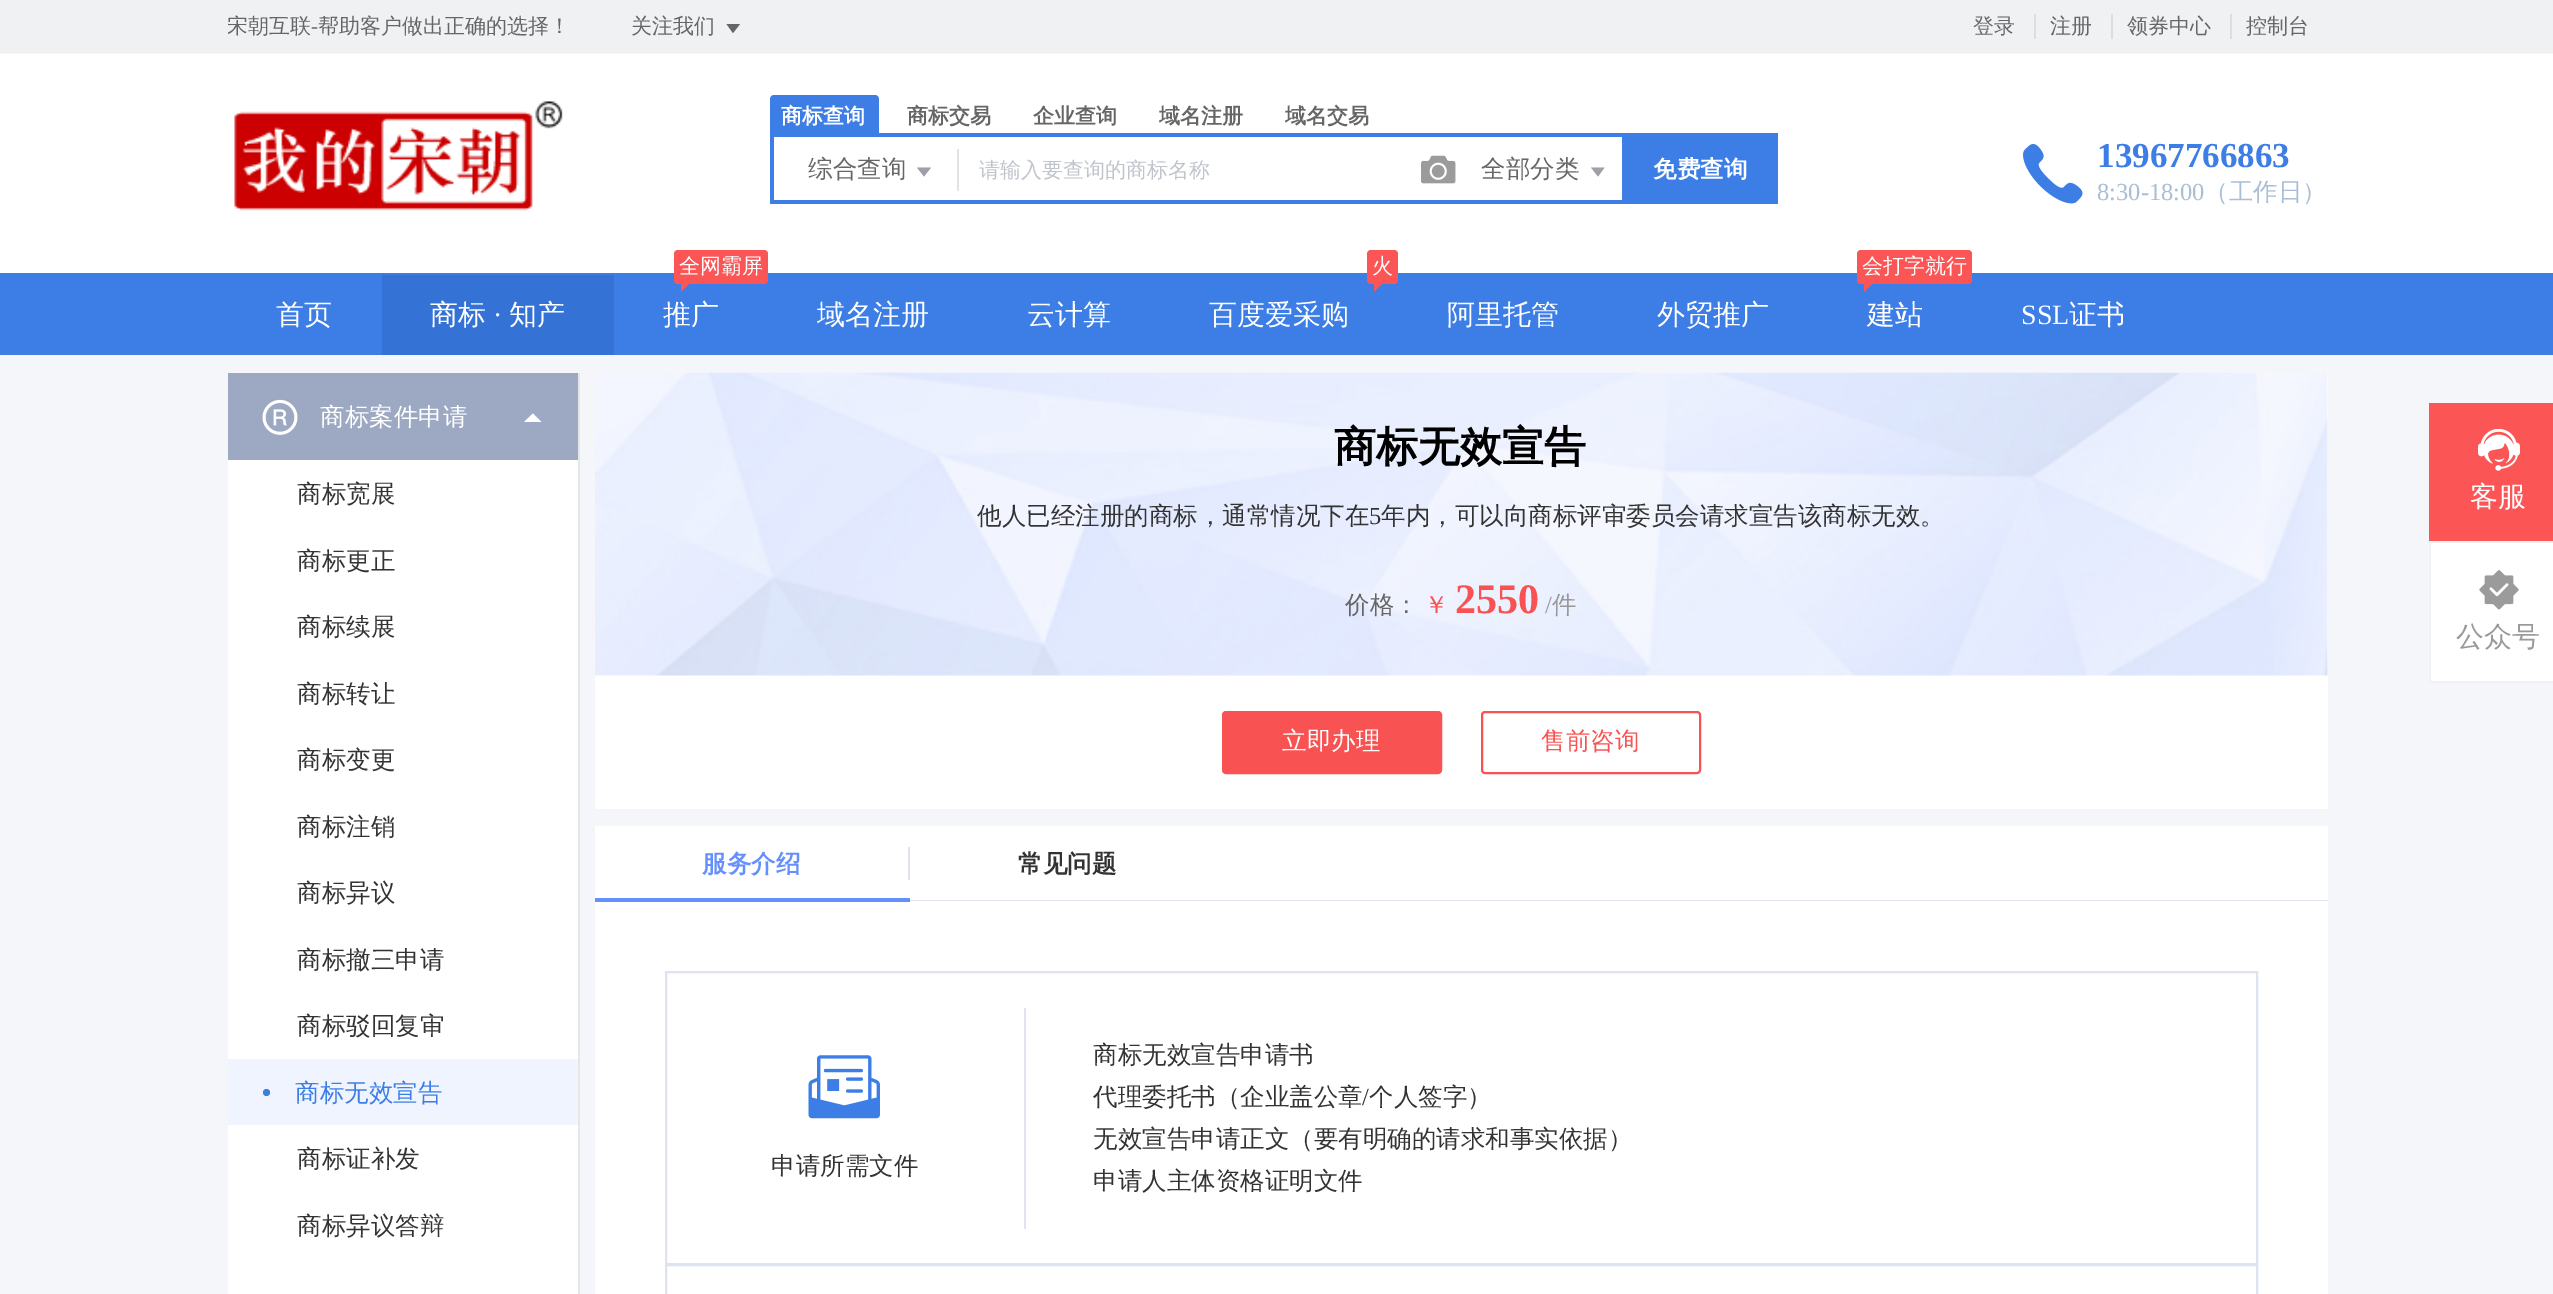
%!PS-Adobe-3.0
%%BoundingBox: 0 0 2553 1294
%%LanguageLevel: 3
%%Pages: 1
%%EndComments
%%BeginProlog
/rrect { 5 dict begin { /r /h /w /y /x } { exch def } forall
  x r add y moveto x w add y 2 copy h add r arct x w add y h add x 1 index r arct
  x y h add x y r arct x y 2 copy exch w add exch r arct closepath end } def
/drawimage { 5 dict begin { /h /w /y /x /name } { exch def } forall
  gsave x y translate w h scale
  w h 8 [w 0 0 h 0 0] name (r) file false 3 colorimage grestore end } def
%%EndProlog
%%BeginSetup
<< /PageSize [2553 1294] >> setpagedevice
%%EndSetup
%%Page: 1 1
0 1294 translate 1 -1 scale
4 setmiterlimit
0.961 0.965 0.98 setrgbcolor
0 0 2553 1294 rectfill
0.941 0.945 0.953 setrgbcolor
0 0 2553 53 rectfill
0.4 setgray
newpath 726.5 24 moveto 740 24 lineto 733 33 lineto closepath fill
0.867 setgray
2034 14 2 25 rectfill
2111 14 2 25 rectfill
2230 14 2 25 rectfill
1 setgray
0 54 2553 219 rectfill
(images/1.raw) 234 101 329 110 drawimage
0.235 0.494 0.898 setrgbcolor
newpath 774 95 moveto 875 95 lineto 877 95 879 97 879 99 curveto 879 133 lineto 770 133 lineto 770 99 lineto 770 97 772 95 774 95 curveto closepath fill
770 133 1008 4 rectfill
770 200 1008 4 rectfill
770 133 4 70 rectfill
0.878 0.89 0.91 setrgbcolor
957 149 2 42 rectfill
0.616 0.627 0.651 setrgbcolor
newpath 917 167.5 moveto 931 167.5 lineto 924 176.5 lineto closepath fill
(images/2.raw) 1421 155 35 29 drawimage
newpath 1591 167.5 moveto 1604.5 167.5 lineto 1598 176.5 lineto closepath fill
0.235 0.494 0.898 setrgbcolor
1622 137 156 63 rectfill
(images/3.raw) 2023 143 60 61 drawimage
0 273 2553 82 rectfill
0.204 0.451 0.835 setrgbcolor
382 275 232 80 rectfill
0.984 0.333 0.333 setrgbcolor
674 250 94 34 4 rrect fill
newpath 681 278 moveto 695 278 lineto 681 292 lineto closepath fill
1367 250 31 34 4 rrect fill
newpath 1374 278 moveto 1388 278 lineto 1374 292 lineto closepath fill
1857 250 115 34 4 rrect fill
newpath 1864 278 moveto 1878 278 lineto 1864 292 lineto closepath fill
1 setgray
228 460 350 834 rectfill
0.902 setgray
578 373 2 921 rectfill
0.616 0.663 0.765 setrgbcolor
228 373 350 87 rectfill
(images/4.raw) 262 399 36 36 drawimage
1 setgray
newpath 541.5 422 moveto 524 422 lineto 533 413.5 lineto closepath fill
0.941 0.957 0.996 setrgbcolor
228 1059 350 66 rectfill
0.235 0.494 0.898 setrgbcolor
newpath 266.5 1092.5 3.5 0 360 arc closepath fill
1 setgray
595 373 1733 436 rectfill
(images/5.raw) 595 372 1733 304 drawimage
0.973 0.322 0.322 setrgbcolor
1223 712 218 61 3 rrect gsave fill grestore
2 setlinewidth
stroke
1482 712 218 61 3 rrect stroke
1 setgray
595 826 1733 74 rectfill
0.875 0.89 0.945 setrgbcolor
910 900 1418 1 rectfill
908 847 2 33 rectfill
1 setgray
595 901 1733 393 rectfill
0.4 0.561 0.996 setrgbcolor
595 898 315 4 rectfill
0.875 0.89 0.945 setrgbcolor
666 972 1591 292 rectstroke
(images/6.raw) 808 1055 72 64 drawimage
1024 1008 2 221 rectfill
666 1265 1591 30 rectstroke
0.984 0.333 0.333 setrgbcolor
2429 403 124 138 rectfill
0.945 setgray
2429 541 124 2 rectfill
(images/7.raw) 2478 429 42 42 drawimage
1 setgray
2431 543 122 138 rectfill
0.945 setgray
2429 681 124 2 rectfill
2429 543 2 140 rectfill
(images/8.raw) 2479 570 40 40 drawimage
gsave
228 0 343 53 rectclip
/WenQuanYiZenHei-Medium [21 0 0 -21 0 0] selectfont
0.4 setgray
227 33 moveto (宋朝互联) show
grestore
/LiberationSerif-Regular [21 0 0 -21 0 0] selectfont
0.4 setgray
311 33 moveto (-) show
/WenQuanYiZenHei-Medium [21 0 0 -21 0 0] selectfont
318 33 moveto (帮助客户做出正确的选择！) show
631 33 moveto (关注我们) show
1973 33 moveto (登录) show
2050 33 moveto (注册) show
2127 33 moveto (领券中心) show
2246 33 moveto (控制台) show
/WenQuanYiZenHei-Bold [21 0 0 -21 0 0] selectfont
1 setgray
781 123 moveto (商标查询) show
0.4 setgray
907 123 moveto (商标交易) show
1033 123 moveto (企业查询) show
1159 123 moveto (域名注册) show
1285 123 moveto (域名交易) show
/WenQuanYiZenHei-Medium [24.5 0 0 -24.5 0 0] selectfont
808 177 moveto (综合查询) show
/WenQuanYiZenHei-Medium [21 0 0 -21 0 0] selectfont
0.753 0.769 0.8 setrgbcolor
979 177 moveto (请输入要查询的商标名称) show
/WenQuanYiZenHei-Medium [24.5 0 0 -24.5 0 0] selectfont
0.4 setgray
1481 177 moveto (全部分类) show
/WenQuanYiZenHei-Bold [23.5 0 0 -23.5 0 0] selectfont
1 setgray
1653 177 moveto (免费查询) show
/LiberationSerif-Bold [35 0 0 -35 0 0] selectfont
0.235 0.494 0.898 setrgbcolor
2097 167 moveto (13967766863) show
/LiberationSerif-Regular [24.5 0 0 -24.5 0 0] selectfont
0.663 0.741 0.827 setrgbcolor
2097 200 moveto (8:30-18:00) show
/WenQuanYiZenHei-Medium [24.5 0 0 -24.5 0 0] selectfont
2204 200 moveto (（工作日）) show
/WenQuanYiZenHei-Medium [28 0 0 -28 0 0] selectfont
1 setgray
276 324 moveto (首页) show
430 324 moveto (商标) show
/LiberationSerif-Regular [28 0 0 -28 0 0] selectfont
493 324 moveto (·) show
/WenQuanYiZenHei-Medium [28 0 0 -28 0 0] selectfont
509 324 moveto (知产) show
/WenQuanYiZenHei-Medium [21 0 0 -21 0 0] selectfont
679 273 moveto (全网霸屏) show
/WenQuanYiZenHei-Medium [28 0 0 -28 0 0] selectfont
663 324 moveto (推广) show
817 324 moveto (域名注册) show
1027 324 moveto (云计算) show
/WenQuanYiZenHei-Medium [21 0 0 -21 0 0] selectfont
1372 273 moveto (火) show
/WenQuanYiZenHei-Medium [28 0 0 -28 0 0] selectfont
1209 324 moveto (百度爱采购) show
1447 324 moveto (阿里托管) show
1657 324 moveto (外贸推广) show
/WenQuanYiZenHei-Medium [21 0 0 -21 0 0] selectfont
1862 273 moveto (会打字就行) show
/WenQuanYiZenHei-Medium [28 0 0 -28 0 0] selectfont
1867 324 moveto (建站) show
/LiberationSerif-Regular [28 0 0 -28 0 0] selectfont
2021 324 moveto (SSL) show
/WenQuanYiZenHei-Medium [28 0 0 -28 0 0] selectfont
2069 324 moveto (证书) show
/WenQuanYiZenHei-Medium [24.5 0 0 -24.5 0 0] selectfont
320 425 moveto (商标案件申请) show
0.2 setgray
297 502 moveto (商标宽展) show
297 569 moveto (商标更正) show
297 635 moveto (商标续展) show
297 702 moveto (商标转让) show
297 768 moveto (商标变更) show
297 835 moveto (商标注销) show
297 901 moveto (商标异议) show
297 968 moveto (商标撤三申请) show
297 1034 moveto (商标驳回复审) show
0.235 0.494 0.898 setrgbcolor
295 1101 moveto (商标无效宣告) show
0.2 setgray
297 1167 moveto (商标证补发) show
297 1234 moveto (商标异议答辩) show
/WenQuanYiZenHei-Bold [42 0 0 -42 0 0] selectfont
0 setgray
1334 461 moveto (商标无效宣告) show
/WenQuanYiZenHei-Medium [24.5 0 0 -24.5 0 0] selectfont
0.2 setgray
977 524 moveto (他人已经注册的商标，通常情况下在) show
/LiberationSerif-Regular [24.5 0 0 -24.5 0 0] selectfont
1369 524 moveto (5) show
/WenQuanYiZenHei-Medium [24.5 0 0 -24.5 0 0] selectfont
1381 524 moveto (年内，可以向商标评审委员会请求宣告该商标无效。) show
0.4 setgray
1345 613 moveto (价格：) show
0.973 0.322 0.322 setrgbcolor
1424 613 moveto (￥) show
/LiberationSerif-Bold [42 0 0 -42 0 0] selectfont
1455 613 moveto (2550) show
/LiberationSerif-Regular [24.5 0 0 -24.5 0 0] selectfont
0.6 setgray
1545 613 moveto (/) show
/WenQuanYiZenHei-Medium [24.5 0 0 -24.5 0 0] selectfont
1552 613 moveto (件) show
1 setgray
1282 749 moveto (立即办理) show
0.973 0.322 0.322 setrgbcolor
1541 749 moveto (售前咨询) show
/WenQuanYiZenHei-Bold [24.5 0 0 -24.5 0 0] selectfont
0.4 0.561 0.996 setrgbcolor
702 872 moveto (服务介绍) show
0.2 setgray
1018 872 moveto (常见问题) show
/WenQuanYiZenHei-Medium [24.5 0 0 -24.5 0 0] selectfont
771 1174 moveto (申请所需文件) show
1093 1063 moveto (商标无效宣告申请书) show
1093 1105 moveto (代理委托书（企业盖公章) show
/LiberationSerif-Regular [24.5 0 0 -24.5 0 0] selectfont
1362 1105 moveto (/) show
/WenQuanYiZenHei-Medium [24.5 0 0 -24.5 0 0] selectfont
1369 1105 moveto (个人签字）) show
1093 1147 moveto (无效宣告申请正文（要有明确的请求和事实依据）) show
1093 1189 moveto (申请人主体资格证明文件) show
/WenQuanYiZenHei-Medium [28 0 0 -28 0 0] selectfont
1 setgray
2470 506 moveto (客服) show
0.6 setgray
2456 646 moveto (公众号) show
showpage
%%EOF
